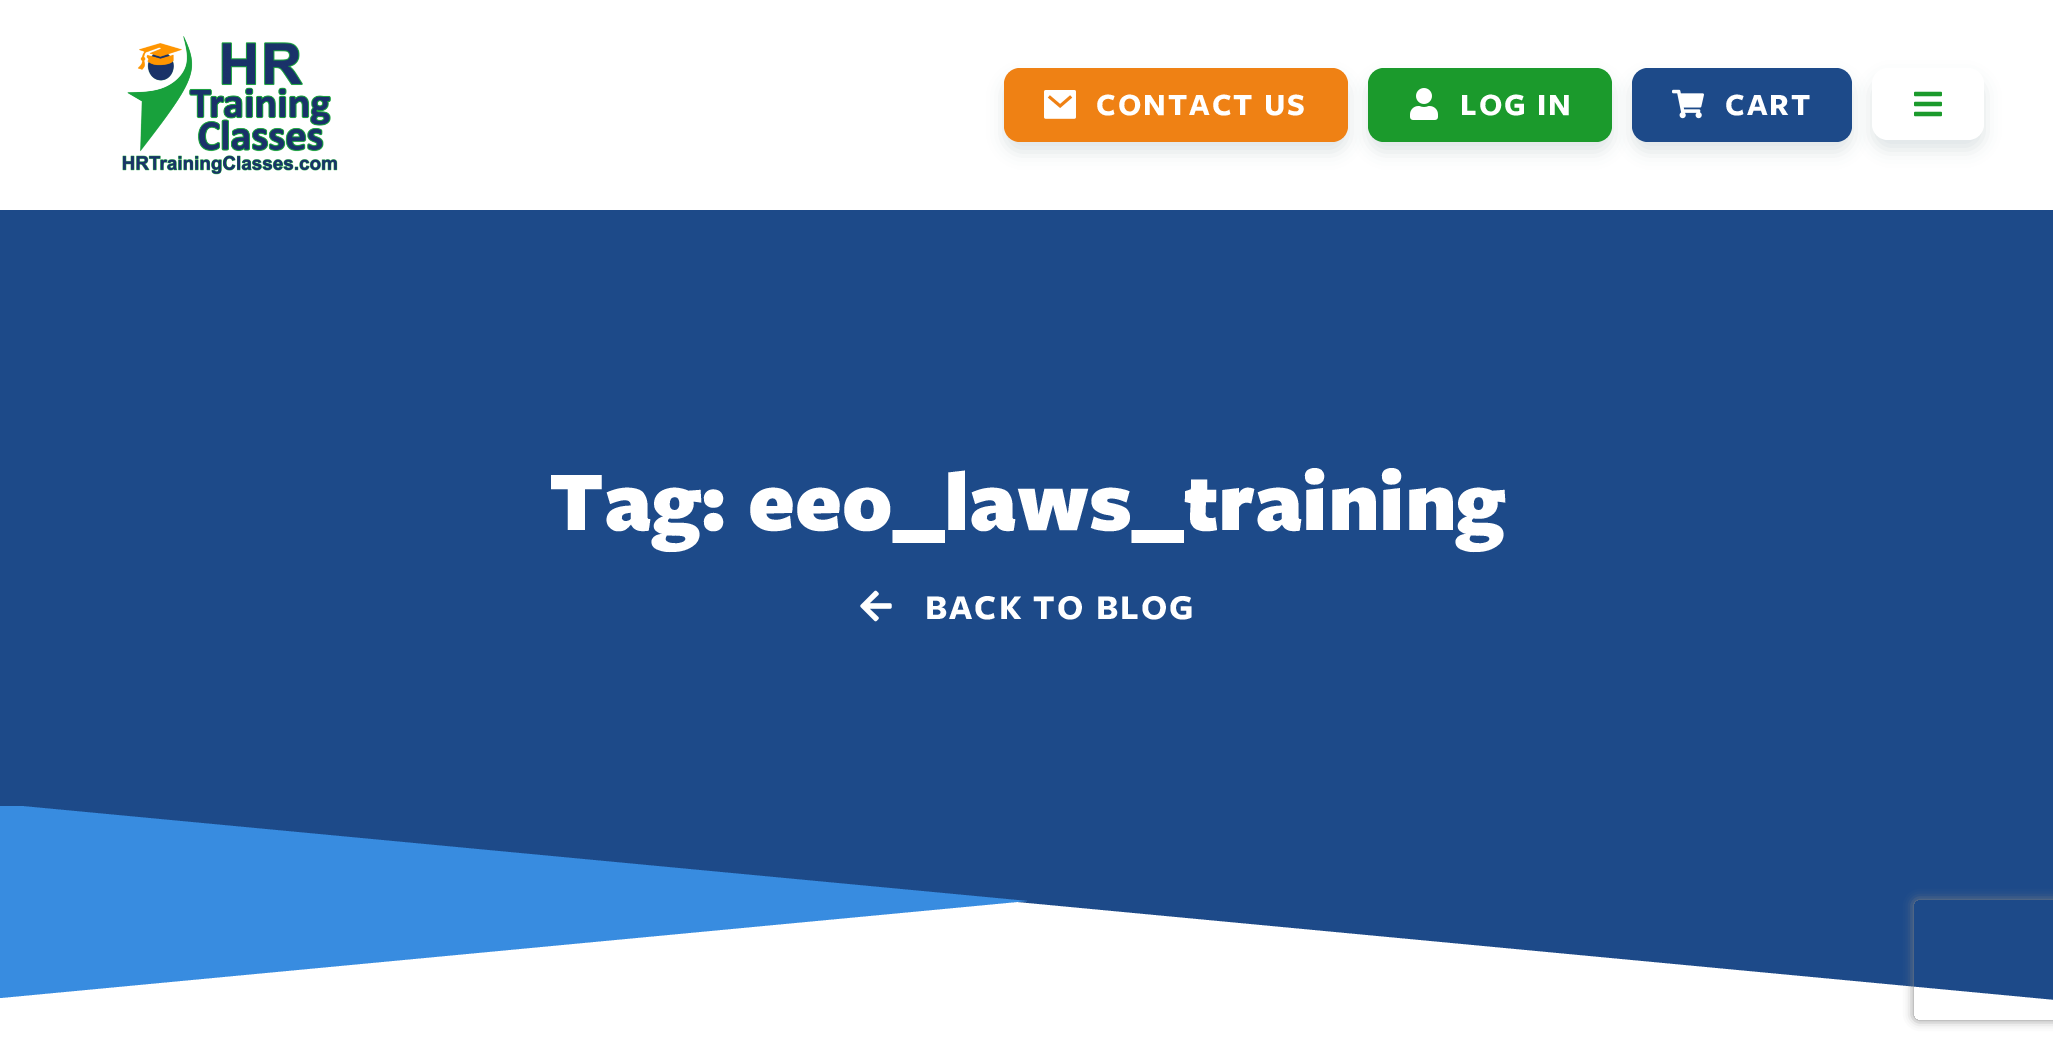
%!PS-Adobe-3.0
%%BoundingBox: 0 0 2053 1047
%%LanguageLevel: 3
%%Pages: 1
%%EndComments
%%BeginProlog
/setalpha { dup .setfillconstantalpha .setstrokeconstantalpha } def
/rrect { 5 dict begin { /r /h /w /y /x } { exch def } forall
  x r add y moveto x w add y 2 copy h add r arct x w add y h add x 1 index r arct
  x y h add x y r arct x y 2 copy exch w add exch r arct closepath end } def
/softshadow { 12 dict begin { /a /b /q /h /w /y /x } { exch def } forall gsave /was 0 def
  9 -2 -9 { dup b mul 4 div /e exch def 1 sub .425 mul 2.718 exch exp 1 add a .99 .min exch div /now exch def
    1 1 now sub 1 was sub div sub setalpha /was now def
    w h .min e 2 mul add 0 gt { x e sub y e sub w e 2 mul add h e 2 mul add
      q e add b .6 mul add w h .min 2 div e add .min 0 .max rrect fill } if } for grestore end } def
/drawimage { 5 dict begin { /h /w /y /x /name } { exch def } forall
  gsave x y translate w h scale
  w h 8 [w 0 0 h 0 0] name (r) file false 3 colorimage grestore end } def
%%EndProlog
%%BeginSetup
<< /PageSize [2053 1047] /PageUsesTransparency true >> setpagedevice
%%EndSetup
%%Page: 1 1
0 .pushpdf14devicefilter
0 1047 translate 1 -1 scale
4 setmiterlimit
1 setgray
0 0 2053 1047 rectfill
(images/1.raw) 122 36 216 139 drawimage
0.161 0.282 0.392 setrgbcolor
1004 78 344 74 16 8 0.15 softshadow
0.937 0.506 0.078 setrgbcolor
1004 68 344 74 16 rrect fill
(images/2.raw) 1044 90 32 29 drawimage
0.161 0.282 0.392 setrgbcolor
1368 78 244 74 16 8 0.15 softshadow
0.106 0.604 0.173 setrgbcolor
1368 68 244 74 16 rrect fill
(images/3.raw) 1410 88 28 32 drawimage
0.161 0.282 0.392 setrgbcolor
1632 78 220 74 16 8 0.15 softshadow
0.114 0.29 0.537 setrgbcolor
1632 68 220 74 16 rrect fill
(images/4.raw) 1672 89 32 30 drawimage
0.161 0.282 0.392 setrgbcolor
1872 78 112 72 16 8 0.15 softshadow
1 setgray
1872 68 112 72 16 rrect fill
(images/5.raw) 1914 91 28 26 drawimage
0.114 0.29 0.537 setrgbcolor
0 210 2053 790 rectfill
(images/6.raw) 860 590 32 32 drawimage
1 setgray
newpath 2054 1000 moveto 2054 1012 lineto -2 1012 lineto -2 806 lineto closepath fill
gsave
0 806 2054 206 rectclip
0.22 0.549 0.878 setrgbcolor
newpath 1027 901 moveto 0 804 lineto 0 998 lineto closepath fill
grestore
gsave
newpath 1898 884 moveto 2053 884 lineto 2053 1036 lineto 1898 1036 lineto closepath 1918 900 moveto 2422 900 lineto 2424 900 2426 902 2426 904 curveto 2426 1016 lineto 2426 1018 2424 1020 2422 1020 curveto 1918 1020 lineto 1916 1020 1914 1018 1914 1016 curveto 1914 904 lineto 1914 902 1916 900 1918 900 curveto closepath eoclip newpath
0.502 setgray
1914 900 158 120 4 5 1 softshadow
grestore
/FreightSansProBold-Bold [32 0 0 -32 0 0] selectfont
1096 115 moveto 2 0 (CONTACT US) ashow
1460 115 moveto 2 0 (LOG IN) ashow
1725 115 moveto 2 0 (CART) ashow
/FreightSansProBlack-Black [88 0 0 -88 0 0] selectfont
549 530 moveto (Tag: eeo_laws_training) show
/FreightSansProBold-Bold [36 0 0 -36 0 0] selectfont
925 619 moveto 2 0 (BACK TO BLOG) ashow
.poppdf14devicefilter showpage
%%EOF
